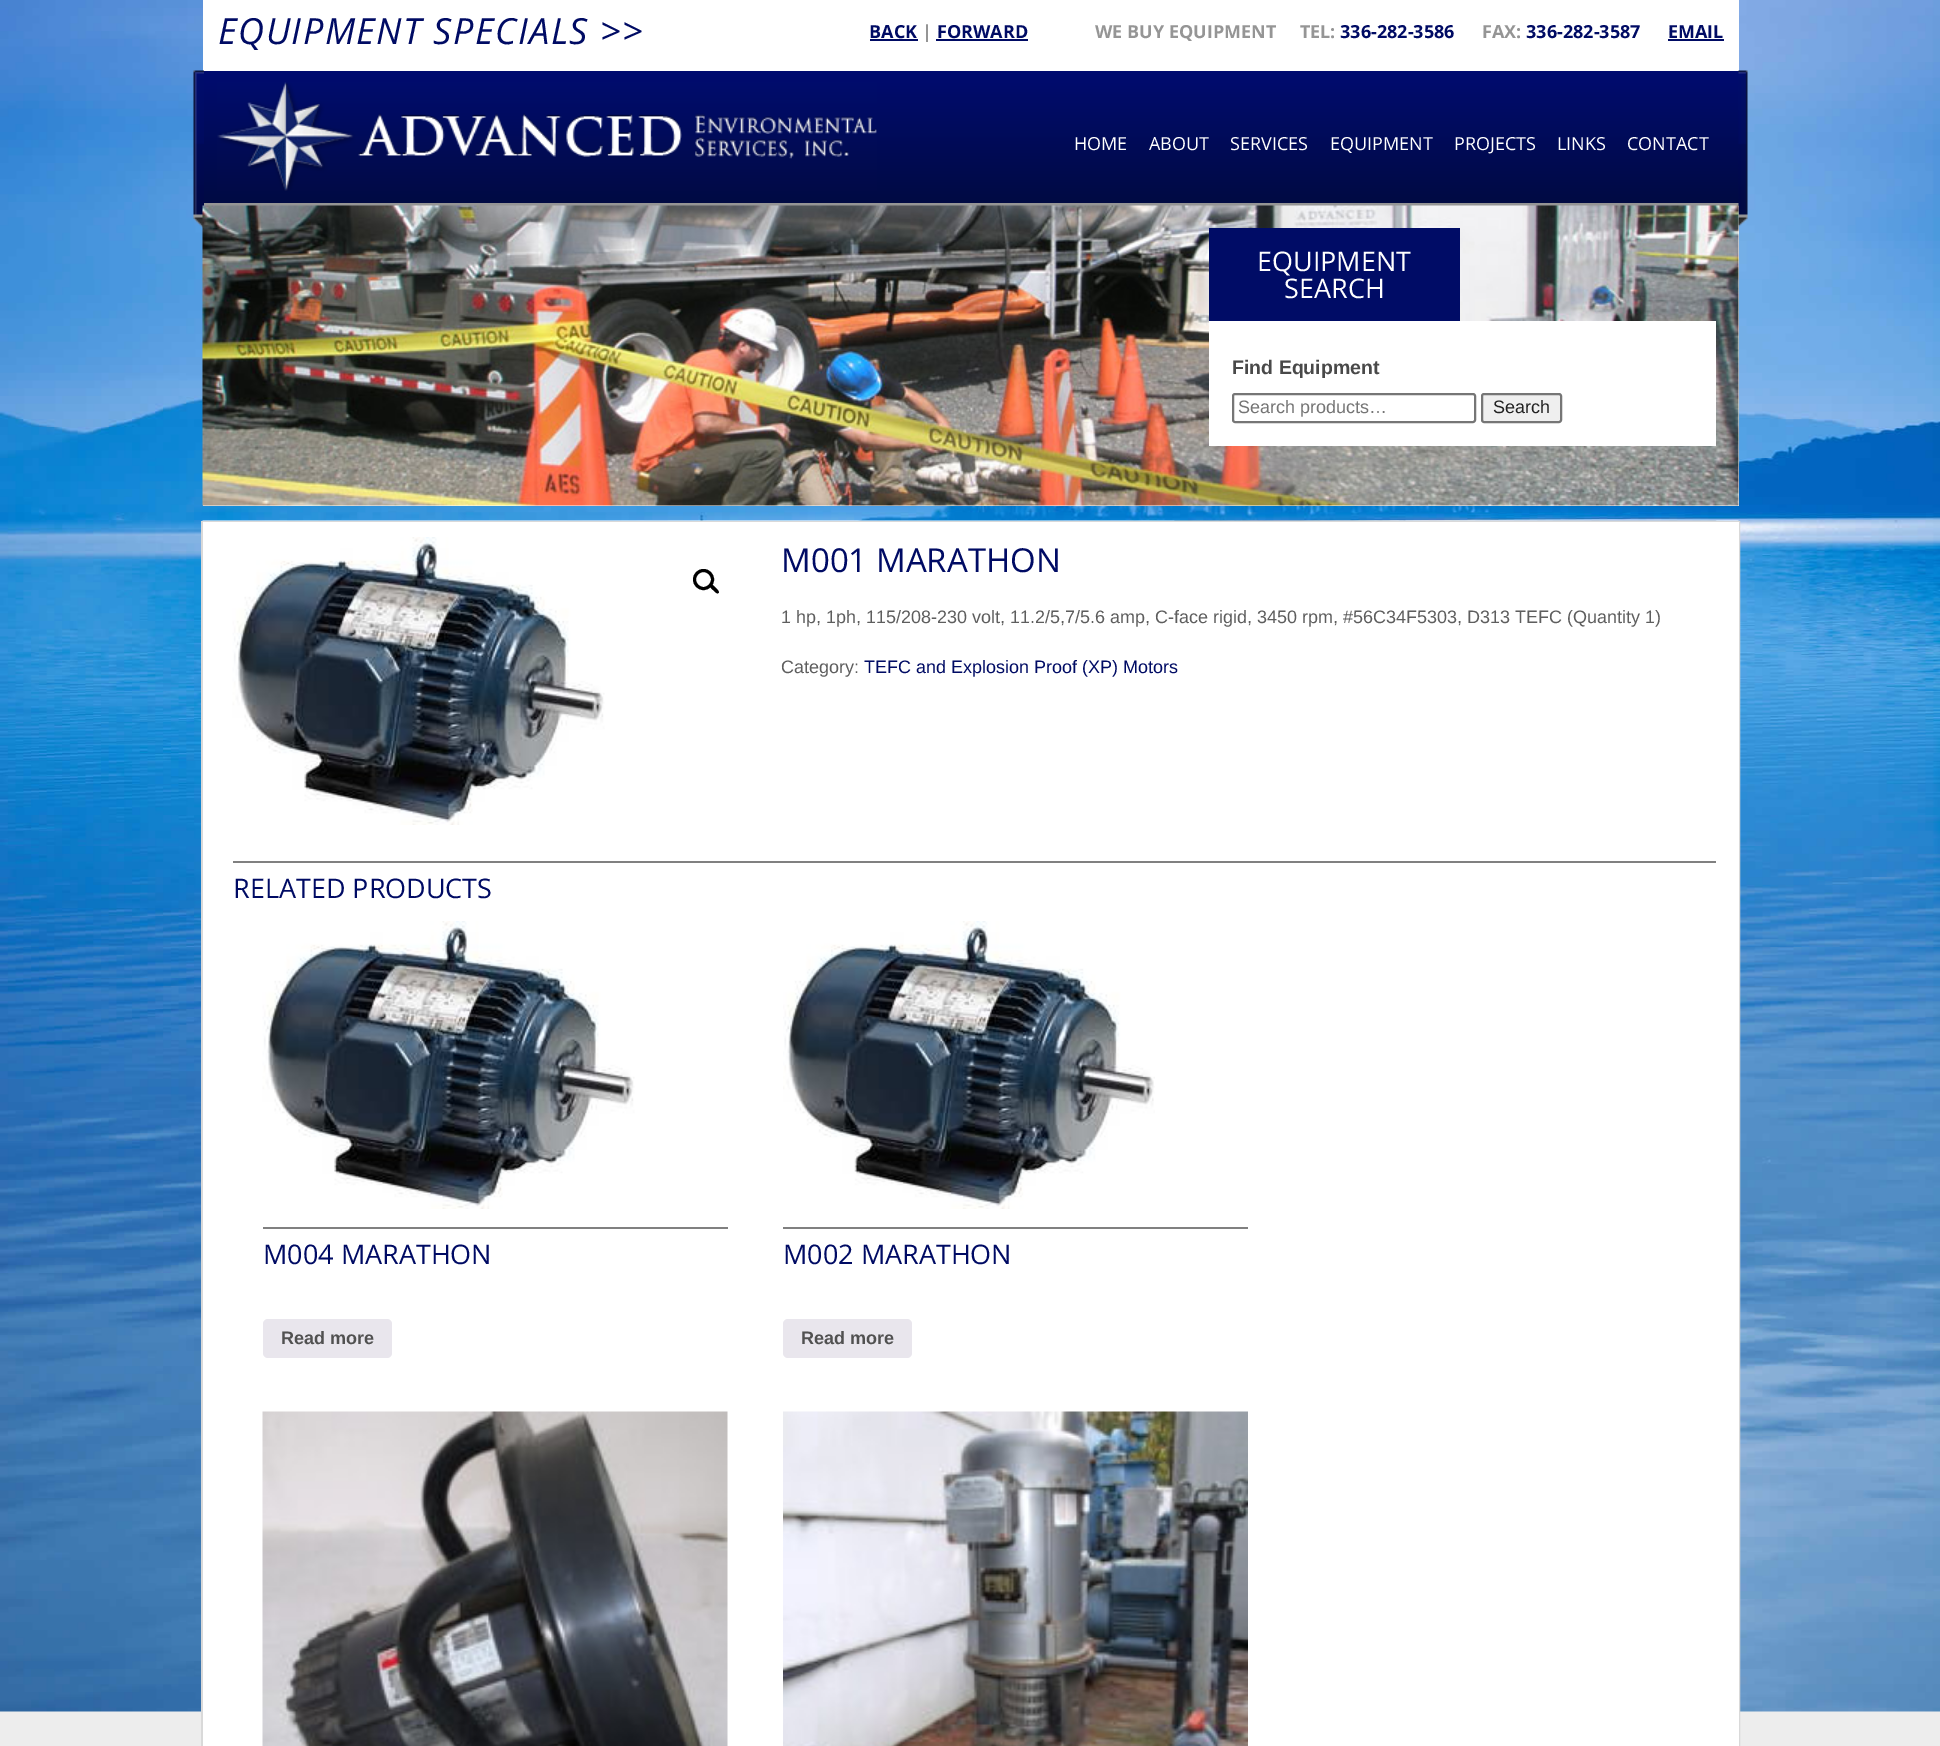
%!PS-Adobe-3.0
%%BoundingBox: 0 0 1940 1746
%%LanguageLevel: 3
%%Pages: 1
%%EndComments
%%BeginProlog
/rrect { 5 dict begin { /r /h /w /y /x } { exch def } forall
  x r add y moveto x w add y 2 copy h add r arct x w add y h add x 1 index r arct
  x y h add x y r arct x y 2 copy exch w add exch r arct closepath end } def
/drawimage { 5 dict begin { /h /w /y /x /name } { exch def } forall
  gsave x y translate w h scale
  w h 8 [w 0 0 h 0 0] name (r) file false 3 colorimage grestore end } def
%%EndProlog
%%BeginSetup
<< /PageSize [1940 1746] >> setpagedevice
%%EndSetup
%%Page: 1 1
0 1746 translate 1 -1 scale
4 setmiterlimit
0.929 setgray
0 0 1940 1746 rectfill
(images/1.raw) 0 0 1940 1712 drawimage
1 setgray
203 0 1536 506 rectfill
0 0.043 0.392 setrgbcolor
870 39 48 2 rectfill
936 39 92 2 rectfill
1668 39 56 2 rectfill
gsave newpath 204 71 moveto 1739 71 lineto 1739 203 lineto 204 203 lineto closepath clip newpath
<< /ShadingType 2 /ColorSpace /DeviceRGB /Coords [971 70 971 203] /Extend [true true] /Function << /FunctionType 2 /Domain [0 1] /C0 [0 0.047 0.439] /C1 [0.004 0.039 0.263] /N 1 >> >> shfill grestore
0.584 setgray
203 203 1536 3 rectfill
(images/2.raw) 193 70 11 158 drawimage
(images/3.raw) 217 82 660 109 drawimage
(images/4.raw) 1738 70 10 158 drawimage
(images/5.raw) 202 205 1537 301 drawimage
0 0.047 0.4 setrgbcolor
1209 228 251 93 rectfill
1 setgray
1209 321 507 125 rectfill
0.463 setgray
2 setlinewidth
1233 394 242 28 2 rrect stroke
0.937 setgray
1482 394 79 28 2 rrect gsave fill grestore
0.463 setgray
stroke
(images/6.raw) 202 520 1537 1 drawimage
0.851 setgray
202 522 1537 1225 rectstroke
1 setgray
203 522 1536 1224 rectfill
(images/7.raw) 232 537 373 288 drawimage
0 setgray
3 setlinewidth
newpath 703.5 579.5 9 0 360 arc closepath stroke
newpath 710 584.5 moveto 711.5 583 714.5 587 715.5 587.5 curveto 716 588.5 720 591.5 718.5 593 curveto 716.5 594.5 714 590.5 713 590 curveto 712 589 708.5 586 710 584.5 curveto closepath fill
0.502 setgray
233 861 1483 2 rectfill
(images/8.raw) 262 921 373 288 drawimage
263 1227 465 2 rectfill
0.914 0.902 0.929 setrgbcolor
263 1319 129 39 5 rrect fill
(images/9.raw) 783 921 372 288 drawimage
0.502 setgray
783 1227 465 2 rectfill
0.914 0.902 0.929 setrgbcolor
783 1319 129 39 5 rrect fill
(images/10.raw) 262 1411 466 335 drawimage
(images/11.raw) 783 1411 465 335 drawimage
/OpenSans-Italic [36 0 0 -36 0 0] selectfont
0 0.043 0.392 setrgbcolor
218 44 moveto 1.5 0 (EQUIPMENT SPECIALS >>) ashow
/OpenSans-Bold [18 0 0 -18 0 0] selectfont
869 38 moveto (BACK) show
0.584 setgray
922 38 moveto (|) show
0 0.043 0.392 setrgbcolor
937 38 moveto (FORWARD) show
0.584 setgray
1095 38 moveto (WE BUY EQUIPMENT     TEL:) show
0 0.043 0.392 setrgbcolor
1340 38 moveto (336-282-3586) show
0.584 setgray
1482 38 moveto (FAX:) show
0 0.043 0.392 setrgbcolor
1526 38 moveto (336-282-3587) show
1668 38 moveto (EMAIL) show
/OpenSans-Regular [18 0 0 -18 0 0] selectfont
1 setgray
1074 150 moveto (HOME) show
1149 150 moveto (ABOUT) show
1230 150 moveto (SERVICES) show
1330 150 moveto (EQUIPMENT) show
1454 150 moveto (PROJECTS) show
1557 150 moveto (LINKS) show
1627 150 moveto (CONTACT) show
/OpenSans-Regular [27 0 0 -27 0 0] selectfont
1257 271 moveto (EQUIPMENT) show
1284 298 moveto (SEARCH) show
/LiberationSans-Bold [19.5 0 0 -19.5 0 0] selectfont
0.286 setgray
1232 374 moveto (Find Equipment) show
/LiberationSans-Regular [18 0 0 -18 0 0] selectfont
0.459 setgray
1238 413 moveto (Search products…) show
0.133 setgray
1493 413 moveto (Search) show
/OpenSans-Regular [33 0 0 -33 0 0] selectfont
0 0.043 0.392 setrgbcolor
781 572 moveto (M001 MARATHON) show
/LiberationSans-Regular [18 0 0 -18 0 0] selectfont
0.369 setgray
781 623 moveto (1 hp, 1ph, 115/208-230 volt, 11.2/5,7/5.6 amp, C-face rigid, 3450 rpm, #56C34F5303, D313 TEFC \(Quantity 1\)) show
781 673 moveto (Category:) show
0 0.043 0.392 setrgbcolor
864 673 moveto (TEFC and Explosion Proof \(XP\) Motors) show
/OpenSans-Regular [27 0 0 -27 0 0] selectfont
233 898 moveto (RELATED PRODUCTS) show
263 1264 moveto (M004 MARATHON) show
/LiberationSans-Bold [18 0 0 -18 0 0] selectfont
0.318 setgray
281 1344 moveto (Read more) show
/OpenSans-Regular [27 0 0 -27 0 0] selectfont
0 0.043 0.392 setrgbcolor
783 1264 moveto (M002 MARATHON) show
/LiberationSans-Bold [18 0 0 -18 0 0] selectfont
0.318 setgray
801 1344 moveto (Read more) show
showpage
%%EOF
